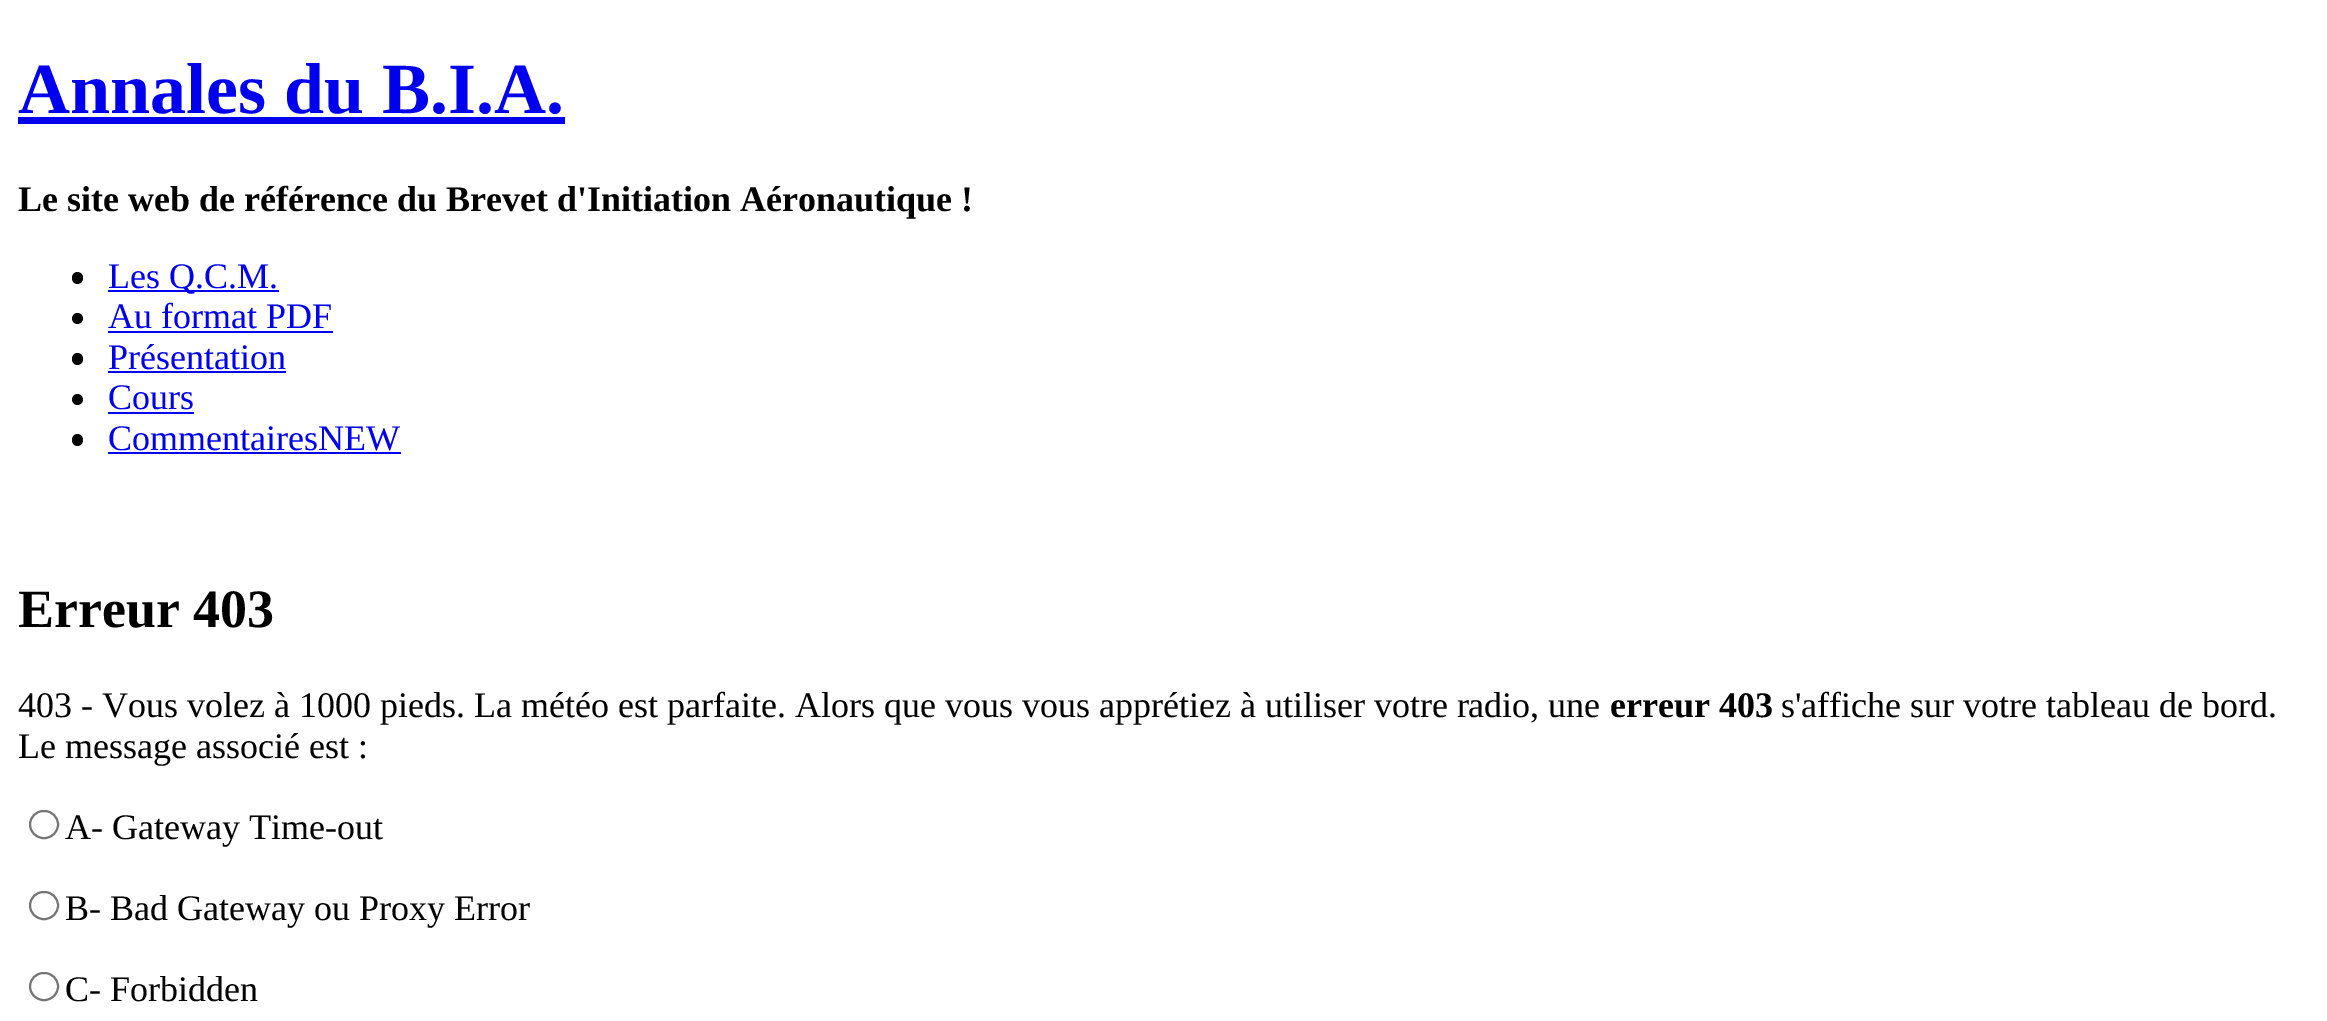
%!PS-Adobe-3.0
%%BoundingBox: 0 0 2327 1021
%%LanguageLevel: 3
%%Pages: 1
%%EndComments
%%BeginProlog
/rrect { 5 dict begin { /r /h /w /y /x } { exch def } forall
  x r add y moveto x w add y 2 copy h add r arct x w add y h add x 1 index r arct
  x y h add x y r arct x y 2 copy exch w add exch r arct closepath end } def
%%EndProlog
%%BeginSetup
<< /PageSize [2327 1021] >> setpagedevice
%%EndSetup
%%Page: 1 1
0 1021 translate 1 -1 scale
4 setmiterlimit
1 setgray
0 0 2327 1021 rectfill
0 0 0.933 setrgbcolor
18 117 547 7 rectfill
0 setgray
72 272 11 12 5.5 rrect fill
0 0 0.933 setrgbcolor
108 290 171 2 rectfill
0 setgray
newpath 77.5 318.5 5.5 0 360 arc closepath fill
0 0 0.933 setrgbcolor
108 331 225 2 rectfill
0 setgray
72 353 11 12 5.5 rrect fill
0 0 0.933 setrgbcolor
108 371 178 2 rectfill
0 setgray
newpath 77.5 399.5 5.5 0 360 arc closepath fill
0 0 0.933 setrgbcolor
108 412 86 2 rectfill
0 setgray
72 434 11 12 5.5 rrect fill
0 0 0.933 setrgbcolor
108 452 293 2 rectfill
0.463 setgray
2 setlinewidth
30 811 28 27 13.5 rrect stroke
30 892 28 27 13.5 rrect stroke
30 973 28 27 13.5 rrect stroke
/LiberationSerif-Bold [72 0 0 -72 0 0] selectfont
0 0 0.933 setrgbcolor
18 113 moveto (Annales du B.I.A.) show
/LiberationSerif-Bold [36 0 0 -36 0 0] selectfont
0 setgray
18 211 moveto (Le site web de référence du Brevet d'Initiation Aéronautique !) show
/LiberationSerif-Regular [36 0 0 -36 0 0] selectfont
0 0 0.933 setrgbcolor
108 288 moveto (Les Q.C.M.) show
108 328 moveto (Au format PDF) show
108 369 moveto (Présentation) show
108 409 moveto (Cours) show
108 450 moveto (CommentairesNEW) show
/LiberationSerif-Bold [54 0 0 -54 0 0] selectfont
0 setgray
18 627 moveto (Erreur 403) show
/LiberationSerif-Regular [36 0 0 -36 0 0] selectfont
18 717 moveto (403 - Vous volez à 1000 pieds. La météo est parfaite. Alors que vous vous apprétiez à utiliser votre radio, une) show
/LiberationSerif-Bold [36 0 0 -36 0 0] selectfont
1610 717 moveto (erreur 403) show
/LiberationSerif-Regular [36 0 0 -36 0 0] selectfont
1781 717 moveto (s'affiche sur votre tableau de bord.) show
18 758 moveto (Le message associé est :) show
65 839 moveto (A- Gateway Time-out) show
65 920 moveto (B- Bad Gateway ou Proxy Error) show
65 1001 moveto (C- Forbidden) show
showpage
%%EOF
